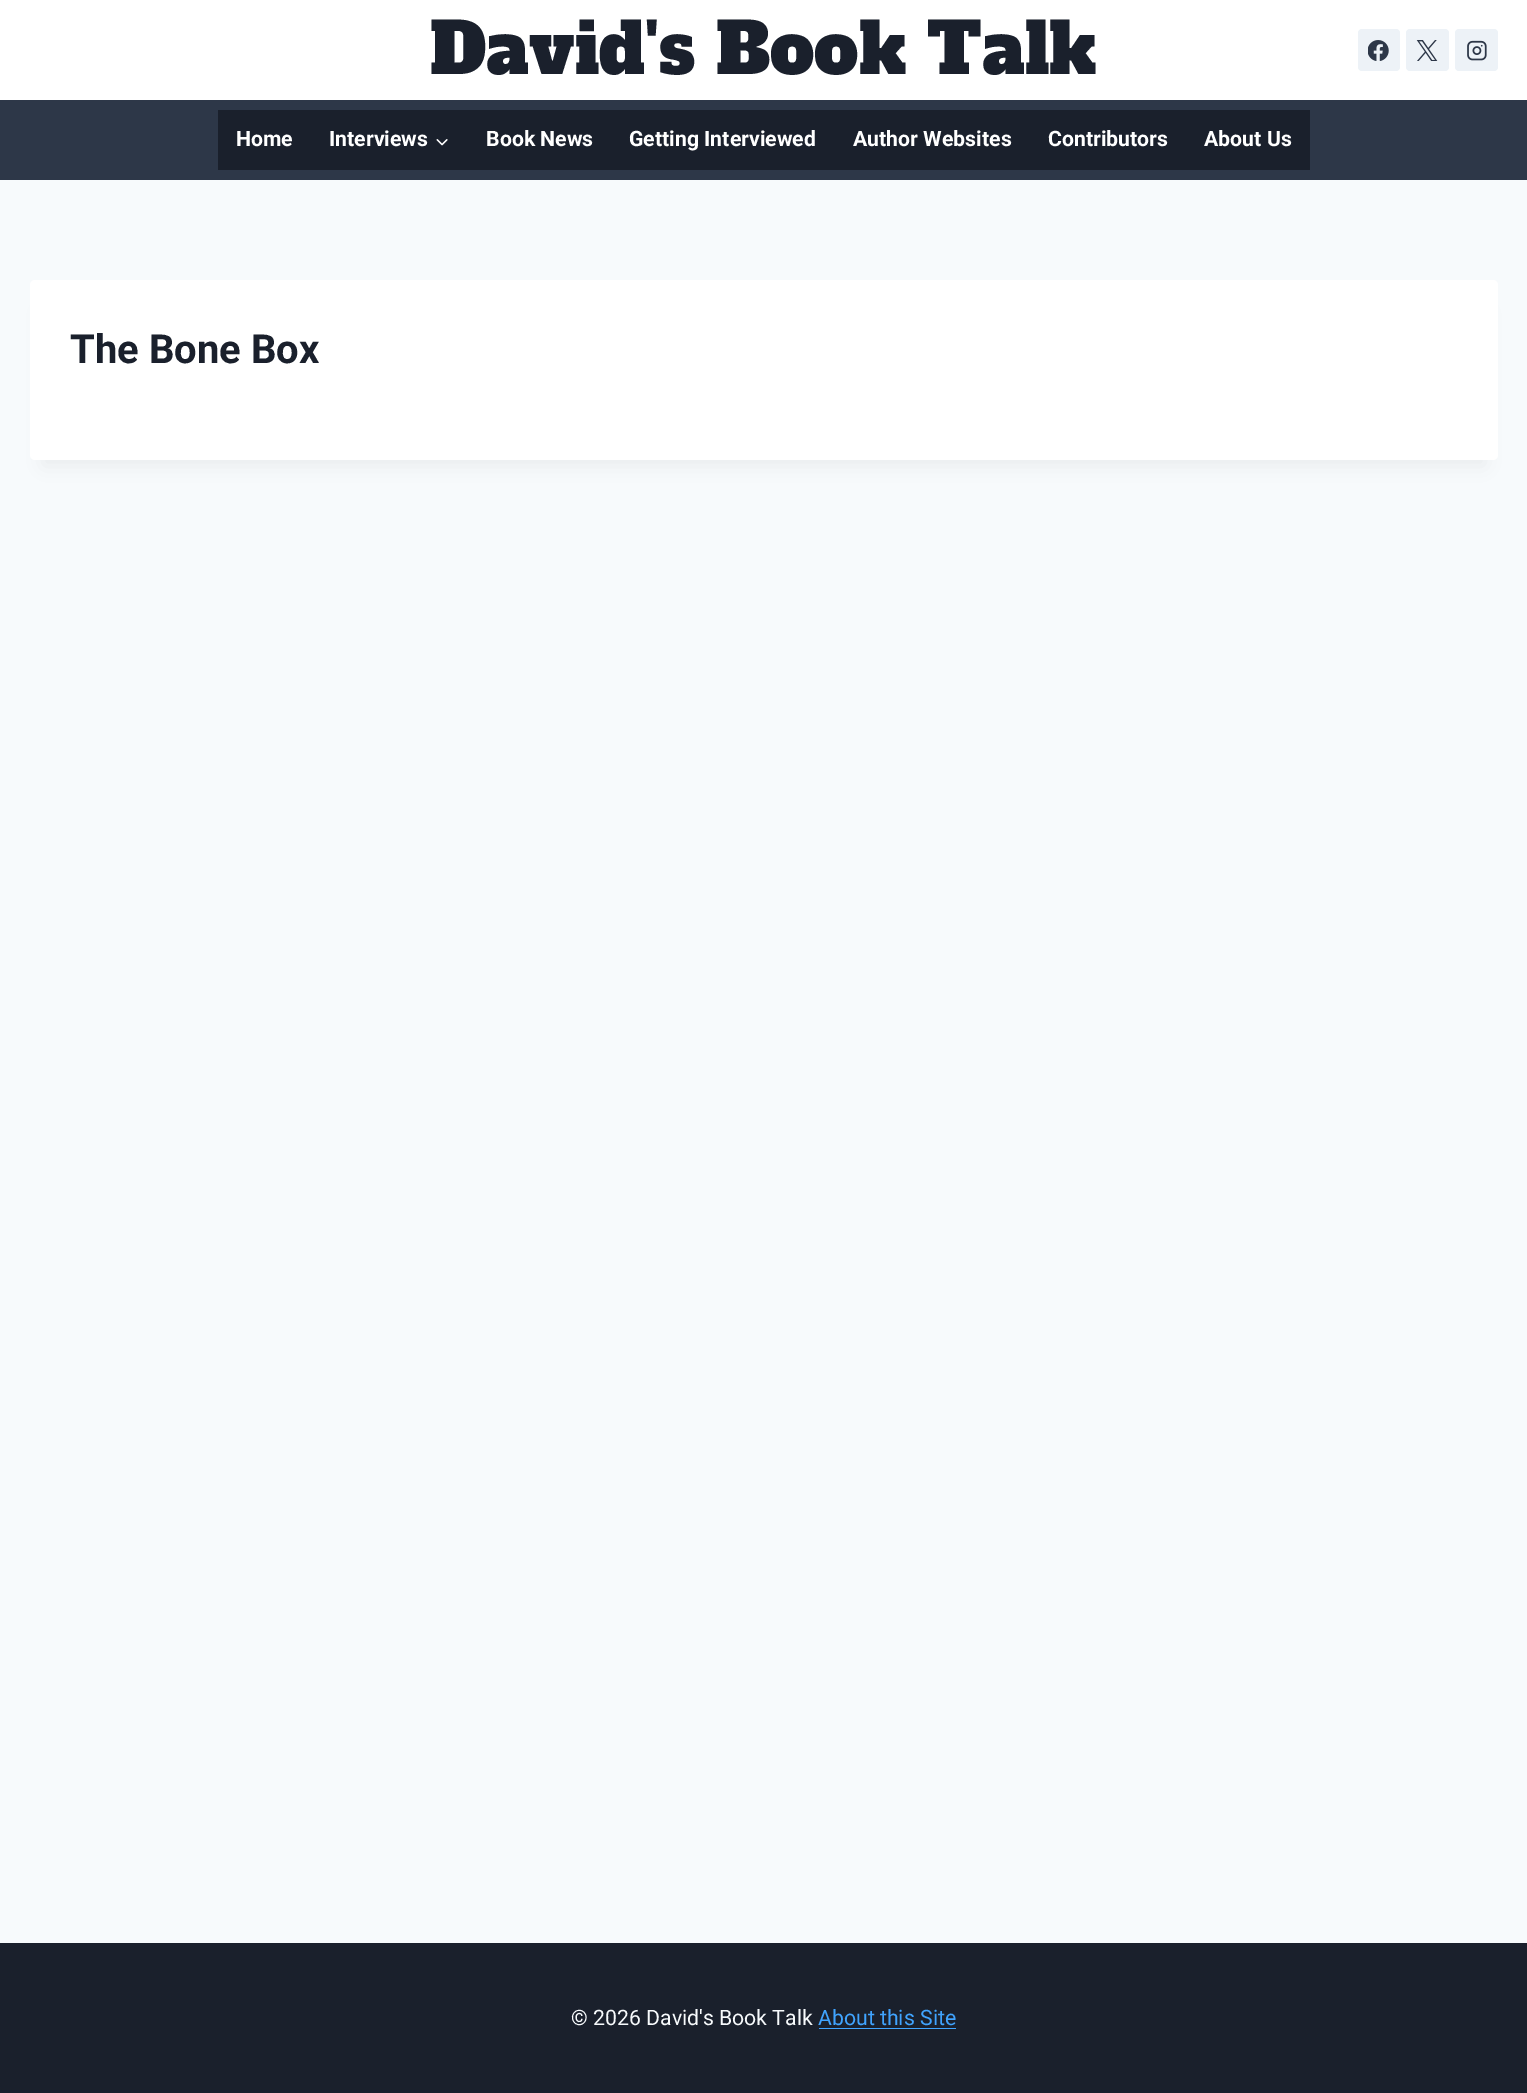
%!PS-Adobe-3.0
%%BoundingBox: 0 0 1527 2093
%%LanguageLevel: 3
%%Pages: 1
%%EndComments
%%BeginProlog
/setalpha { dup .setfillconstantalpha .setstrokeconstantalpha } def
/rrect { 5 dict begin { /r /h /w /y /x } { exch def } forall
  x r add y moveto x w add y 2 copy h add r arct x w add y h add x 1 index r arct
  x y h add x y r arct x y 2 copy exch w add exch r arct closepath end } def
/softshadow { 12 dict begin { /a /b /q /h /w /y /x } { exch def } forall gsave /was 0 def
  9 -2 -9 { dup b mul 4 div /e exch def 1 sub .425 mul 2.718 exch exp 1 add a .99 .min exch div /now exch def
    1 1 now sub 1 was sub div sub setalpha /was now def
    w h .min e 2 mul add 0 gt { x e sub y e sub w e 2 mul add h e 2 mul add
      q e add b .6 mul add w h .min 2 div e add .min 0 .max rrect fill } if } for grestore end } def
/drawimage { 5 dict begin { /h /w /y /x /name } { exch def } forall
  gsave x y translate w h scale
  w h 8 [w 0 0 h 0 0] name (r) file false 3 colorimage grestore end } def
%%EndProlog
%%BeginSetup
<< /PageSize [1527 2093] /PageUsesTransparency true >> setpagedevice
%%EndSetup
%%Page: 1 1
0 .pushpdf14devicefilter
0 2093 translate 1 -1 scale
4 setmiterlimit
0.969 0.98 0.988 setrgbcolor
0 0 1527 2093 rectfill
1 setgray
0 0 1527 100 rectfill
0.929 0.949 0.969 setrgbcolor
1358 29 42 42 4 rrect fill
(images/1.raw) 1368 40 21 21 drawimage
1406 29 43 42 4 rrect fill
(images/2.raw) 1416 40 22 21 drawimage
1455 29 43 42 4 rrect fill
(images/3.raw) 1467 40 20 21 drawimage
0.176 0.216 0.282 setrgbcolor
0 100 1527 80 rectfill
0.102 0.125 0.173 setrgbcolor
218 110 1092 60 rectfill
(images/4.raw) 436 139 12 7 drawimage
0 setgray
43 311 1442 155 0 9.5 0.05 softshadow
1 setgray
30 280 1468 180 5 rrect fill
0.102 0.125 0.173 setrgbcolor
0 1943 1527 150 rectfill
0.251 0.643 1 setrgbcolor
819 2028 137 1 rectfill
/AlfaSlabOne-Regular [70 0 0 -70 0 0] selectfont
0.102 0.125 0.173 setrgbcolor
430 74 moveto (David's Book Talk) show
/Roboto-Bold [21.25 0 0 -21.25 0 0] selectfont
1 setgray
236 146 moveto (Home) show
329 146 moveto (Interviews) show
486 146 moveto (Book News) show
629 146 moveto (Getting Interviewed) show
853 146 moveto (Author Websites) show
1048 146 moveto (Contributors) show
1204 146 moveto (About Us) show
/Roboto-Bold [40 0 0 -40 0 0] selectfont
0.102 0.125 0.173 setrgbcolor
70 363 moveto (The Bone Box) show
/Roboto-Regular [21.25 0 0 -21.25 0 0] selectfont
0.969 0.98 0.988 setrgbcolor
571 2025 moveto (© 2026 David's Book Talk) show
0.251 0.643 1 setrgbcolor
818 2025 moveto (About this Site) show
.poppdf14devicefilter showpage
%%EOF
